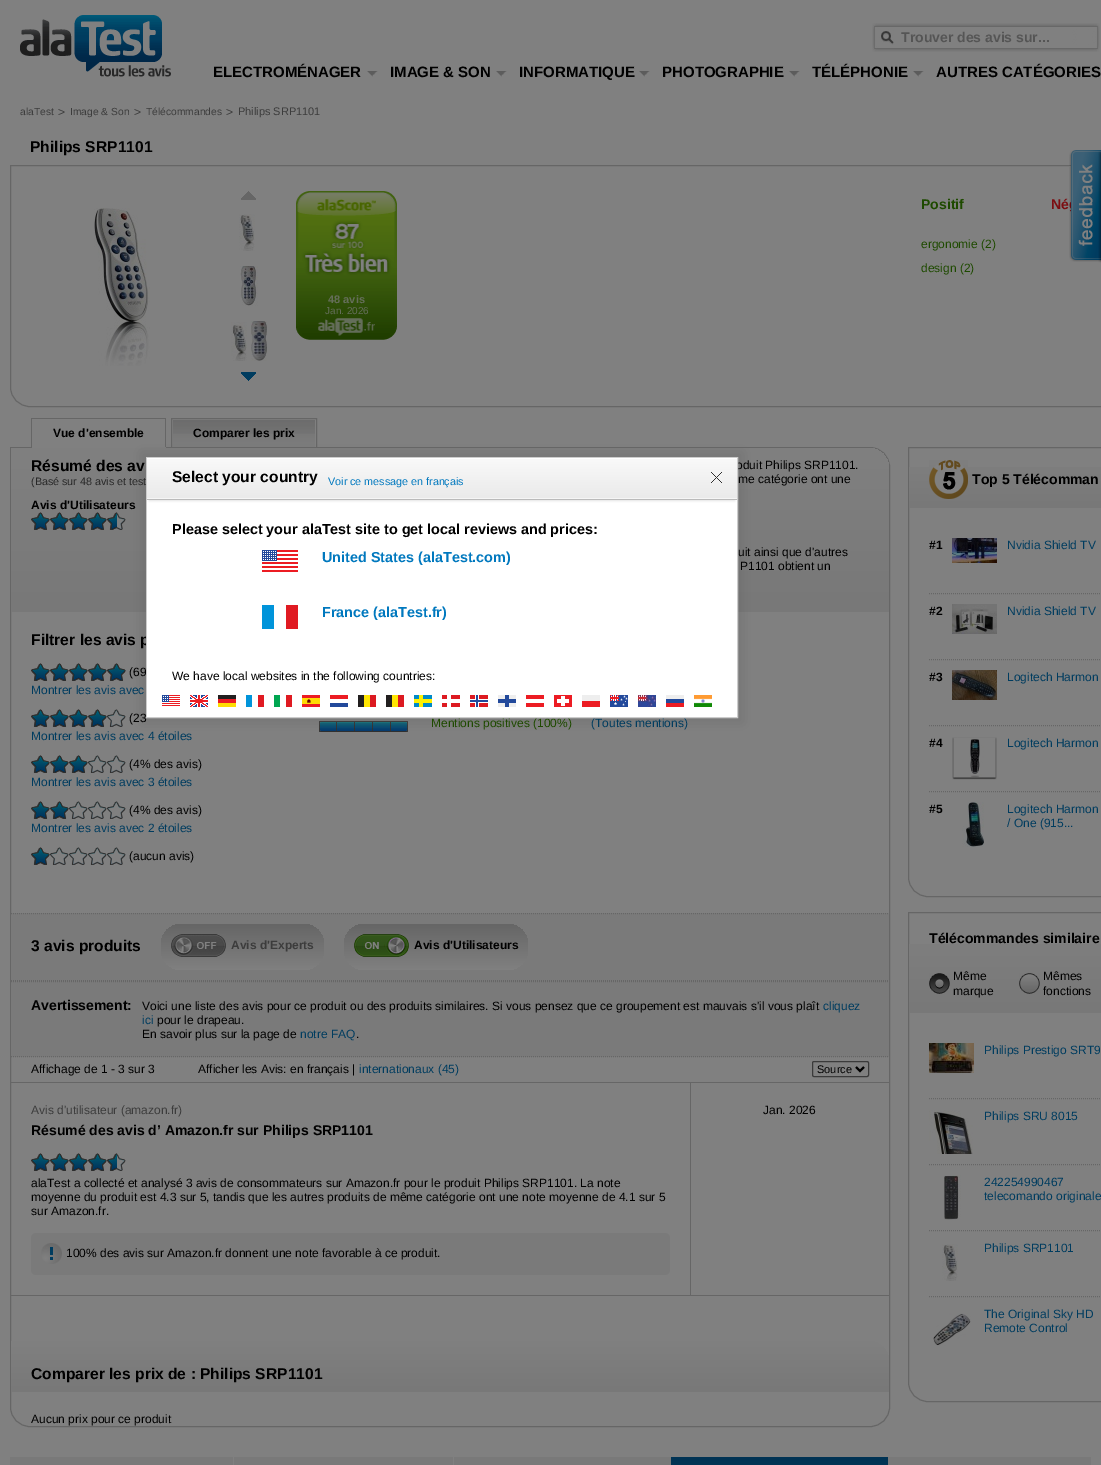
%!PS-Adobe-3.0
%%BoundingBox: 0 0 1101 1465
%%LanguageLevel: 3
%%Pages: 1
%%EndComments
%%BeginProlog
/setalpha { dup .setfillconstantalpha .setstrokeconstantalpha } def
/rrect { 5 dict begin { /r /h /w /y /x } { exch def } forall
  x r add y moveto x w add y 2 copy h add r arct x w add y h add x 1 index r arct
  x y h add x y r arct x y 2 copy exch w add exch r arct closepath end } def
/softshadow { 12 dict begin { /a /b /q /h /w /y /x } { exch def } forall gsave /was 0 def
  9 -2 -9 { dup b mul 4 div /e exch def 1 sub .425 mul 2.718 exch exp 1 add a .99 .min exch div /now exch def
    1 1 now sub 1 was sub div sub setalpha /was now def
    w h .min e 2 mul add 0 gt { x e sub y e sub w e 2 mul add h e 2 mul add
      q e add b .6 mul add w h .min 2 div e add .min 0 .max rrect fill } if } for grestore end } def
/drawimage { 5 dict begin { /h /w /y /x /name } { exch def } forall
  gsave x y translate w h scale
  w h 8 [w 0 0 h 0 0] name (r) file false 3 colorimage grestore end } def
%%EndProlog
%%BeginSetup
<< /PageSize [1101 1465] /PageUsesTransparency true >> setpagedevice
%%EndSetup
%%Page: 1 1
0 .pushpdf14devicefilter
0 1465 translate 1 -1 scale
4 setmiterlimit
0.502 setgray
0 0 1101 1465 rectfill
(images/1.raw) 872 23 228 29 drawimage
(images/2.raw) 367 71 11 6 drawimage
(images/2.raw) 496 71 11 6 drawimage
(images/2.raw) 639 71 11 6 drawimage
(images/2.raw) 789 71 11 6 drawimage
(images/2.raw) 913 71 11 6 drawimage
(images/3.raw) 20 15 151 62 drawimage
0.4 setgray
newpath 10.5 165.5 moveto 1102 165.5 lineto 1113 165.5 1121.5 174 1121.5 185 curveto 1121.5 387 lineto 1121.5 398 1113 406.5 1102 406.5 curveto 30 406.5 lineto 19 406.5 10.5 398 10.5 387 curveto closepath stroke
(images/4.raw) 94 208 56 158 drawimage
(images/5.raw) 241 191 15 9 drawimage
(images/6.raw) 239 214 16 37 drawimage
(images/7.raw) 240 266 18 40 drawimage
(images/8.raw) 231 322 16 39 drawimage
(images/9.raw) 251 321 16 40 drawimage
(images/10.raw) 241 372 15 9 drawimage
(images/11.raw) 296 191 101 149 drawimage
newpath 10.5 447.5 moveto 870 447.5 lineto 881 447.5 889.5 456 889.5 467 curveto 889.5 1407 lineto 889.5 1418 881 1426.5 870 1426.5 curveto 30 1426.5 lineto 19 1426.5 10.5 1418 10.5 1407 curveto closepath stroke
31 418 135 1 rectfill
165 418 1 30 rectfill
0.502 setgray
31 447 135 1 rectfill
0.4 setgray
31 418 1 30 rectfill
171.5 418.5 145 29 rectstroke
(images/12.raw) 173 420 142 27 drawimage
gsave newpath 11 448 moveto 869 448 lineto 880 448 889 457 889 468 curveto 889 612 lineto 11 612 lineto closepath clip newpath
<< /ShadingType 2 /ColorSpace /DeviceRGB /Coords [450 448 450 612] /Extend [true true] /Function << /FunctionType 2 /Domain [0 1] /C0 [0.502 0.502 0.502] /C1 [0.471 0.471 0.471] /N 1 >> >> shfill grestore
(images/13.raw) 31 512 95 18 drawimage
(images/14.raw) 31 512 86 18 drawimage
(images/15.raw) 31 663 95 18 drawimage
(images/16.raw) 31 663 95 18 drawimage
(images/15.raw) 31 709 95 18 drawimage
(images/17.raw) 31 709 76 18 drawimage
(images/15.raw) 31 755 95 18 drawimage
(images/18.raw) 31 755 57 18 drawimage
(images/15.raw) 31 801 95 18 drawimage
(images/19.raw) 31 801 38 18 drawimage
(images/15.raw) 31 847 95 18 drawimage
(images/20.raw) 31 847 19 18 drawimage
(images/21.raw) 319 721 89 11 drawimage
(images/22.raw) 319 721 89 11 drawimage
0.478 setgray
11 913 878 144 rectfill
0.4 setgray
[1 1] 0 setdash
newpath 11 913.5 moveto 889 913.5 lineto stroke
newpath 11 980.5 moveto 889 980.5 lineto stroke
gsave 161 924 163 46 20 rrect clip newpath
<< /ShadingType 2 /ColorSpace /DeviceRGB /Coords [243 924 243 970] /Extend [true true] /Function << /FunctionType 2 /Domain [0 1] /C0 [0.4 0.4 0.4] /C1 [0.502 0.502 0.502] /N 1 >> >> shfill grestore
(images/23.raw) 171 934 55 23 drawimage
gsave 344 924 184 46 20 rrect clip newpath
<< /ShadingType 2 /ColorSpace /DeviceRGB /Coords [436 924 436 970] /Extend [true true] /Function << /FunctionType 2 /Domain [0 1] /C0 [0.4 0.4 0.4] /C1 [0.502 0.502 0.502] /N 1 >> >> shfill grestore
(images/24.raw) 354 934 55 23 drawimage
newpath 11 981.5 moveto 889 981.5 lineto stroke
newpath 11 1056.5 moveto 889 1056.5 lineto stroke
0.231 setgray
[] 0 setdash
812.5 1061.5 56 15 1.5 rrect stroke
0 setgray
2 setlinewidth
newpath 856 1067 moveto 860 1071 lineto 864 1067 lineto stroke
0.4 setgray
11 1082 878 1 rectfill
690 1083 1 212 rectfill
(images/15.raw) 31 1153 95 18 drawimage
(images/25.raw) 31 1153 86 18 drawimage
0.478 setgray
31 1233 639 42 5 rrect fill
(images/26.raw) 41 1243 21 21 drawimage
0.4 setgray
11 1295 878 1 rectfill
gsave newpath 11 1341 moveto 869 1341 lineto 880 1341 889 1350 889 1361 curveto 889 1392 lineto 11 1392 lineto closepath clip newpath
<< /ShadingType 2 /ColorSpace /DeviceRGB /Coords [450 1341 450 1392] /Extend [true true] /Function << /FunctionType 2 /Domain [0 1] /C0 [0.502 0.502 0.502] /C1 [0.471 0.471 0.471] /N 1 >> >> shfill grestore
1 setlinewidth
newpath 908.5 447.5 moveto 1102 447.5 lineto 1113 447.5 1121.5 456 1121.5 467 curveto 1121.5 877 lineto 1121.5 888 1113 896.5 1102 896.5 curveto 928 896.5 lineto 917 896.5 908.5 888 908.5 877 curveto closepath stroke
gsave newpath 909 467 moveto 1101 467 lineto 1101 508 lineto 909 508 lineto closepath clip newpath
<< /ShadingType 2 /ColorSpace /DeviceRGB /Coords [1059 448 1059 508] /Extend [true true] /Function << /FunctionType 2 /Domain [0 1] /C0 [0.502 0.502 0.502] /C1 [0.471 0.471 0.471] /N 1 >> >> shfill grestore
(images/27.raw) 929 460 39 39 drawimage
[1 1] 0 setdash
newpath 929 593.5 moveto 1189 593.5 lineto stroke
(images/28.raw) 952 538 45 25 drawimage
newpath 929 659.5 moveto 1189 659.5 lineto stroke
(images/29.raw) 952 604 45 30 drawimage
newpath 929 725.5 moveto 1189 725.5 lineto stroke
(images/30.raw) 952 670 45 30 drawimage
newpath 929 791.5 moveto 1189 791.5 lineto stroke
(images/31.raw) 952 737 45 43 drawimage
(images/32.raw) 962 802 22 45 drawimage
[] 0 setdash
newpath 908.5 912.5 moveto 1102 912.5 lineto 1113 912.5 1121.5 921 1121.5 932 curveto 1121.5 1382 lineto 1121.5 1393 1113 1401.5 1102 1401.5 curveto 928 1401.5 lineto 917 1401.5 908.5 1393 908.5 1382 curveto closepath stroke
gsave newpath 909 944 moveto 1101 944 lineto 1101 1013 lineto 909 1013 lineto closepath clip newpath
<< /ShadingType 2 /ColorSpace /DeviceRGB /Coords [1059 913 1059 1013] /Extend [true true] /Function << /FunctionType 2 /Domain [0 1] /C0 [0.502 0.502 0.502] /C1 [0.471 0.471 0.471] /N 1 >> >> shfill grestore
(images/33.raw) 929 973 21 21 drawimage
(images/34.raw) 1019 973 21 21 drawimage
[1 1] 0 setdash
newpath 929 1098.5 moveto 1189 1098.5 lineto stroke
(images/35.raw) 929 1043 45 30 drawimage
newpath 929 1164.5 moveto 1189 1164.5 lineto stroke
(images/36.raw) 929 1110 44 44 drawimage
newpath 929 1230.5 moveto 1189 1230.5 lineto stroke
(images/37.raw) 944 1175 17 45 drawimage
newpath 929 1296.5 moveto 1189 1296.5 lineto stroke
(images/38.raw) 942 1244 16 37 drawimage
(images/39.raw) 933 1313 38 33 drawimage
(images/40.raw) 1069 150 32 113 drawimage
0.392 setgray
141 452 602 271 0 6.5 0.4 softshadow
0.475 setgray
10 1457 1081 8 rectfill
0.502 setgray
233 1457 1 8 rectfill
453 1457 1 8 rectfill
gsave newpath 671 1457 moveto 888 1457 lineto 888 1465 lineto 671 1465 lineto closepath clip newpath
<< /ShadingType 2 /ColorSpace /DeviceRGB /Coords [780 1457 780 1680] /Extend [true true] /Function << /FunctionType 2 /Domain [0 1] /C0 [0 0.2 0.329] /C1 [0.235 0.431 0.502] /N 1 >> >> shfill grestore
/LiberationSans-Bold [14 0 0 -14 0 0] selectfont
0.333 setgray
901 42 moveto (Trouver des avis sur...) show
/LiberationSans-Bold [15 0 0 -15 0 0] selectfont
0 setgray
213 77 moveto (ELECTROMÉNAGER) show
390 77 moveto (IMAGE & SON) show
519 77 moveto (INFORMATIQUE) show
662 77 moveto (PHOTOGRAPHIE) show
812 77 moveto (TÉLÉPHONIE) show
936 77 moveto (AUTRES CATÉGORIES) show
/LiberationSans-Regular [10.25 0 0 -10.25 0 0] selectfont
0.235 setgray
20 115 moveto (alaTest) show
/LiberationSans-Regular [12 0 0 -12 0 0] selectfont
58 116 moveto (>) show
/LiberationSans-Regular [10.25 0 0 -10.25 0 0] selectfont
70 115 moveto (Image & Son) show
/LiberationSans-Regular [12 0 0 -12 0 0] selectfont
134 116 moveto (>) show
/LiberationSans-Regular [10.25 0 0 -10.25 0 0] selectfont
146 115 moveto (Télécommandes) show
/LiberationSans-Regular [12 0 0 -12 0 0] selectfont
226 116 moveto (>) show
/LiberationSans-Regular [11 0 0 -11 0 0] selectfont
238 115 moveto (Philips SRP1101) show
/LiberationSans-Bold [15.6 0 0 -15.6 0 0] selectfont
0 setgray
30 152 moveto (Philips SRP1101) show
/LiberationSans-Bold [14 0 0 -14 0 0] selectfont
0.118 0.29 0 setrgbcolor
921 209 moveto (Positif) show
/LiberationSans-Regular [12 0 0 -12 0 0] selectfont
921 248 moveto (ergonomie \(2\)) show
921 272 moveto (design \(2\)) show
/LiberationSans-Bold [14 0 0 -14 0 0] selectfont
0.486 0.055 0.071 setrgbcolor
1051 209 moveto (Né) show
/LiberationSans-Bold [11 0 0 -11 0 0] selectfont
0.396 0.431 0.353 setrgbcolor
328 303 moveto (48 avis) show
/LiberationSans-Regular [10 0 0 -10 0 0] selectfont
325 314 moveto (Jan. 2026) show
/LiberationSans-Bold [12 0 0 -12 0 0] selectfont
0 setgray
53 437 moveto (Vue d'ensemble) show
193 437 moveto (Comparer les prix) show
/LiberationSans-Bold [15.6 0 0 -15.6 0 0] selectfont
31 471 moveto (Résumé des av) show
/LiberationSans-Regular [12 0 0 -12 0 0] selectfont
736 469 moveto (oduit Philips SRP1101.) show
738 483 moveto (me catégorie ont une) show
738 556 moveto (uit ainsi que d'autres) show
740 570 moveto (P1101 obtient un) show
/LiberationSans-Regular [10.75 0 0 -10.75 0 0] selectfont
0.157 setgray
31 485 moveto (\(Basé sur 48 avis et test) show
/LiberationSans-Bold [12 0 0 -12 0 0] selectfont
0 setgray
31 509 moveto (Avis d'Utilisateurs) show
/LiberationSans-Bold [15.6 0 0 -15.6 0 0] selectfont
31 645 moveto (Filtrer les avis p) show
/LiberationSans-Regular [12 0 0 -12 0 0] selectfont
129 676 moveto (\(69) show
0 0.235 0.373 setrgbcolor
31 694 moveto (Montrer les avis avec) show
0 setgray
129 722 moveto (\(23) show
0 0.235 0.373 setrgbcolor
31 740 moveto (Montrer les avis avec 4 étoiles) show
0 setgray
129 768 moveto (\(4% des avis\)) show
0 0.235 0.373 setrgbcolor
31 786 moveto (Montrer les avis avec 3 étoiles) show
0 setgray
129 814 moveto (\(4% des avis\)) show
0 0.235 0.373 setrgbcolor
31 832 moveto (Montrer les avis avec 2 étoiles) show
0 setgray
129 860 moveto (\(aucun avis\)) show
0.118 0.29 0 setrgbcolor
431 727 moveto (Mentions positives \(100%\)) show
0 0.235 0.373 setrgbcolor
591 727 moveto (\(Toutes mentions\)) show
/LiberationSans-Bold [15.6 0 0 -15.6 0 0] selectfont
0 setgray
31 951 moveto (3 avis produits) show
/LiberationSans-Bold [12 0 0 -12 0 0] selectfont
0.235 setgray
231 949 moveto (Avis d'Experts) show
0 setgray
414 949 moveto (Avis d'Utilisateurs) show
/LiberationSans-Bold [14 0 0 -14 0 0] selectfont
31 1010 moveto (Avertissement:) show
/LiberationSans-Regular [12 0 0 -12 0 0] selectfont
142 1010 moveto (Voici une liste des avis pour ce produit ou des produits similaires. Si vous pensez que ce groupement est mauvais s'il vous plaît) show
0 0.235 0.373 setrgbcolor
823 1010 moveto (cliquez) show
142 1024 moveto (ici) show
0 setgray
157 1024 moveto (pour le drapeau.) show
142 1038 moveto (En savoir plus sur la page de) show
0 0.235 0.373 setrgbcolor
300 1038 moveto (notre FAQ) show
0 setgray
356 1038 moveto (.) show
31 1073 moveto (Affichage de 1 - 3 sur 3) show
198 1073 moveto (Afficher les Avis: en français |) show
0 0.235 0.373 setrgbcolor
359 1073 moveto (internationaux \(45\)) show
/LiberationSans-Regular [11 0 0 -11 0 0] selectfont
0 setgray
817 1073 moveto (Source) show
/LiberationSans-Regular [12 0 0 -12 0 0] selectfont
0.235 setgray
31 1114 moveto (Avis d'utilisateur \(amazon.fr\)) show
/LiberationSans-Bold [14 0 0 -14 0 0] selectfont
0 setgray
31 1135 moveto (Résumé des avis d’ Amazon.fr sur Philips SRP1101) show
/LiberationSans-Regular [12 0 0 -12 0 0] selectfont
31 1187 moveto (alaTest a collecté et analysé 3 avis de consommateurs sur Amazon.fr pour le produit Philips SRP1101. La note) show
31 1201 moveto (moyenne du produit est 4.3 sur 5, tandis que les autres produits de même catégorie ont une note moyenne de 4.1 sur 5) show
31 1215 moveto (sur Amazon.fr.) show
66 1257 moveto (100% des avis sur Amazon.fr donnent une note favorable à ce produit.) show
763 1114 moveto (Jan. 2026) show
/LiberationSans-Bold [15.6 0 0 -15.6 0 0] selectfont
31 1379 moveto (Comparer les prix de : Philips SRP1101) show
/LiberationSans-Regular [12 0 0 -12 0 0] selectfont
31 1423 moveto (Aucun prix pour ce produit) show
/LiberationSans-Bold [14 0 0 -14 0 0] selectfont
972 484 moveto (Top 5 Télécomman) show
/LiberationSans-Bold [12 0 0 -12 0 0] selectfont
929 549 moveto (#1) show
/LiberationSans-Regular [12 0 0 -12 0 0] selectfont
0 0.235 0.373 setrgbcolor
1007 549 moveto (Nvidia Shield TV) show
/LiberationSans-Bold [12 0 0 -12 0 0] selectfont
0 setgray
929 615 moveto (#2) show
/LiberationSans-Regular [12 0 0 -12 0 0] selectfont
0 0.235 0.373 setrgbcolor
1007 615 moveto (Nvidia Shield TV) show
/LiberationSans-Bold [12 0 0 -12 0 0] selectfont
0 setgray
929 681 moveto (#3) show
/LiberationSans-Regular [12 0 0 -12 0 0] selectfont
0 0.235 0.373 setrgbcolor
1007 681 moveto (Logitech Harmon) show
/LiberationSans-Bold [12 0 0 -12 0 0] selectfont
0 setgray
929 747 moveto (#4) show
/LiberationSans-Regular [12 0 0 -12 0 0] selectfont
0 0.235 0.373 setrgbcolor
1007 747 moveto (Logitech Harmon) show
/LiberationSans-Bold [12 0 0 -12 0 0] selectfont
0 setgray
929 813 moveto (#5) show
/LiberationSans-Regular [12 0 0 -12 0 0] selectfont
0 0.235 0.373 setrgbcolor
1007 813 moveto (Logitech Harmon) show
1007 827 moveto (/ One \(915...) show
/LiberationSans-Bold [14 0 0 -14 0 0] selectfont
0 setgray
929 943 moveto (Télécommandes similaire) show
/LiberationSans-Regular [12 0 0 -12 0 0] selectfont
953 980 moveto (Même) show
953 995 moveto (marque) show
1043 980 moveto (Mêmes) show
1043 995 moveto (fonctions) show
0 0.235 0.373 setrgbcolor
984 1054 moveto (Philips Prestigo SRT9) show
984 1120 moveto (Philips SRU 8015) show
984 1186 moveto (242254990467) show
984 1200 moveto (telecomando originale) show
984 1252 moveto (Philips SRP1101) show
984 1318 moveto (The Original Sky HD) show
984 1332 moveto (Remote Control) show
0.8 setgray
[] 0 setdash
146.5 457.5 591 260 rectstroke
1 setgray
147 500 590 217 rectfill
0.886 setgray
149 464 586 37 0 1 1 softshadow
0.729 setgray
147 499 590 1 rectfill
gsave newpath 147 459 moveto 737 459 lineto 737 498 lineto 147 498 lineto closepath clip newpath
<< /ShadingType 2 /ColorSpace /DeviceRGB /Coords [442 459 442 498] /Extend [true true] /Function << /FunctionType 2 /Domain [0 1] /C0 [0.976 0.976 0.976] /C1 [0.918 0.918 0.918] /N 1 >> >> shfill grestore
1 setgray
147 458 590 1 rectfill
0.961 setgray
147 498 590 1 rectfill
/LiberationSans-Bold [15.6 0 0 -15.6 0 0] selectfont
0 setgray
172 482 moveto (Select your country) show
/LiberationSans-Regular [10.75 0 0 -10.75 0 0] selectfont
0 0.471 0.745 setrgbcolor
328 485 moveto (Voir ce message en français) show
(images/41.raw) 711 472 11 11 drawimage
/LiberationSans-Bold [14.4 0 0 -14.4 0 0] selectfont
0 setgray
172 534 moveto (Please select your alaTest site to get local reviews and prices:) show
(images/42.raw) 262 550 36 22 drawimage
0 0.471 0.745 setrgbcolor
322 562 moveto (United States \(alaTest.com\)) show
(images/43.raw) 262 605 36 24 drawimage
322 617 moveto (France \(alaTest.fr\)) show
/LiberationSans-Regular [12 0 0 -12 0 0] selectfont
0 setgray
172 680 moveto (We have local websites in the following countries:) show
(images/44.raw) 162 695 18 11 drawimage
(images/45.raw) 190 695 18 12 drawimage
(images/46.raw) 218 695 18 12 drawimage
(images/47.raw) 246 695 18 12 drawimage
(images/48.raw) 274 695 18 12 drawimage
(images/49.raw) 302 695 18 12 drawimage
(images/50.raw) 330 695 18 12 drawimage
(images/51.raw) 358 695 18 12 drawimage
(images/51.raw) 386 695 18 12 drawimage
(images/52.raw) 414 695 18 12 drawimage
(images/53.raw) 442 695 18 12 drawimage
(images/54.raw) 470 695 18 12 drawimage
(images/55.raw) 498 695 18 12 drawimage
(images/56.raw) 526 695 18 12 drawimage
(images/57.raw) 554 695 18 12 drawimage
(images/58.raw) 582 695 18 12 drawimage
(images/59.raw) 610 695 18 12 drawimage
(images/60.raw) 638 695 18 12 drawimage
(images/61.raw) 666 695 18 12 drawimage
(images/62.raw) 694 695 18 12 drawimage
.poppdf14devicefilter showpage
%%EOF
